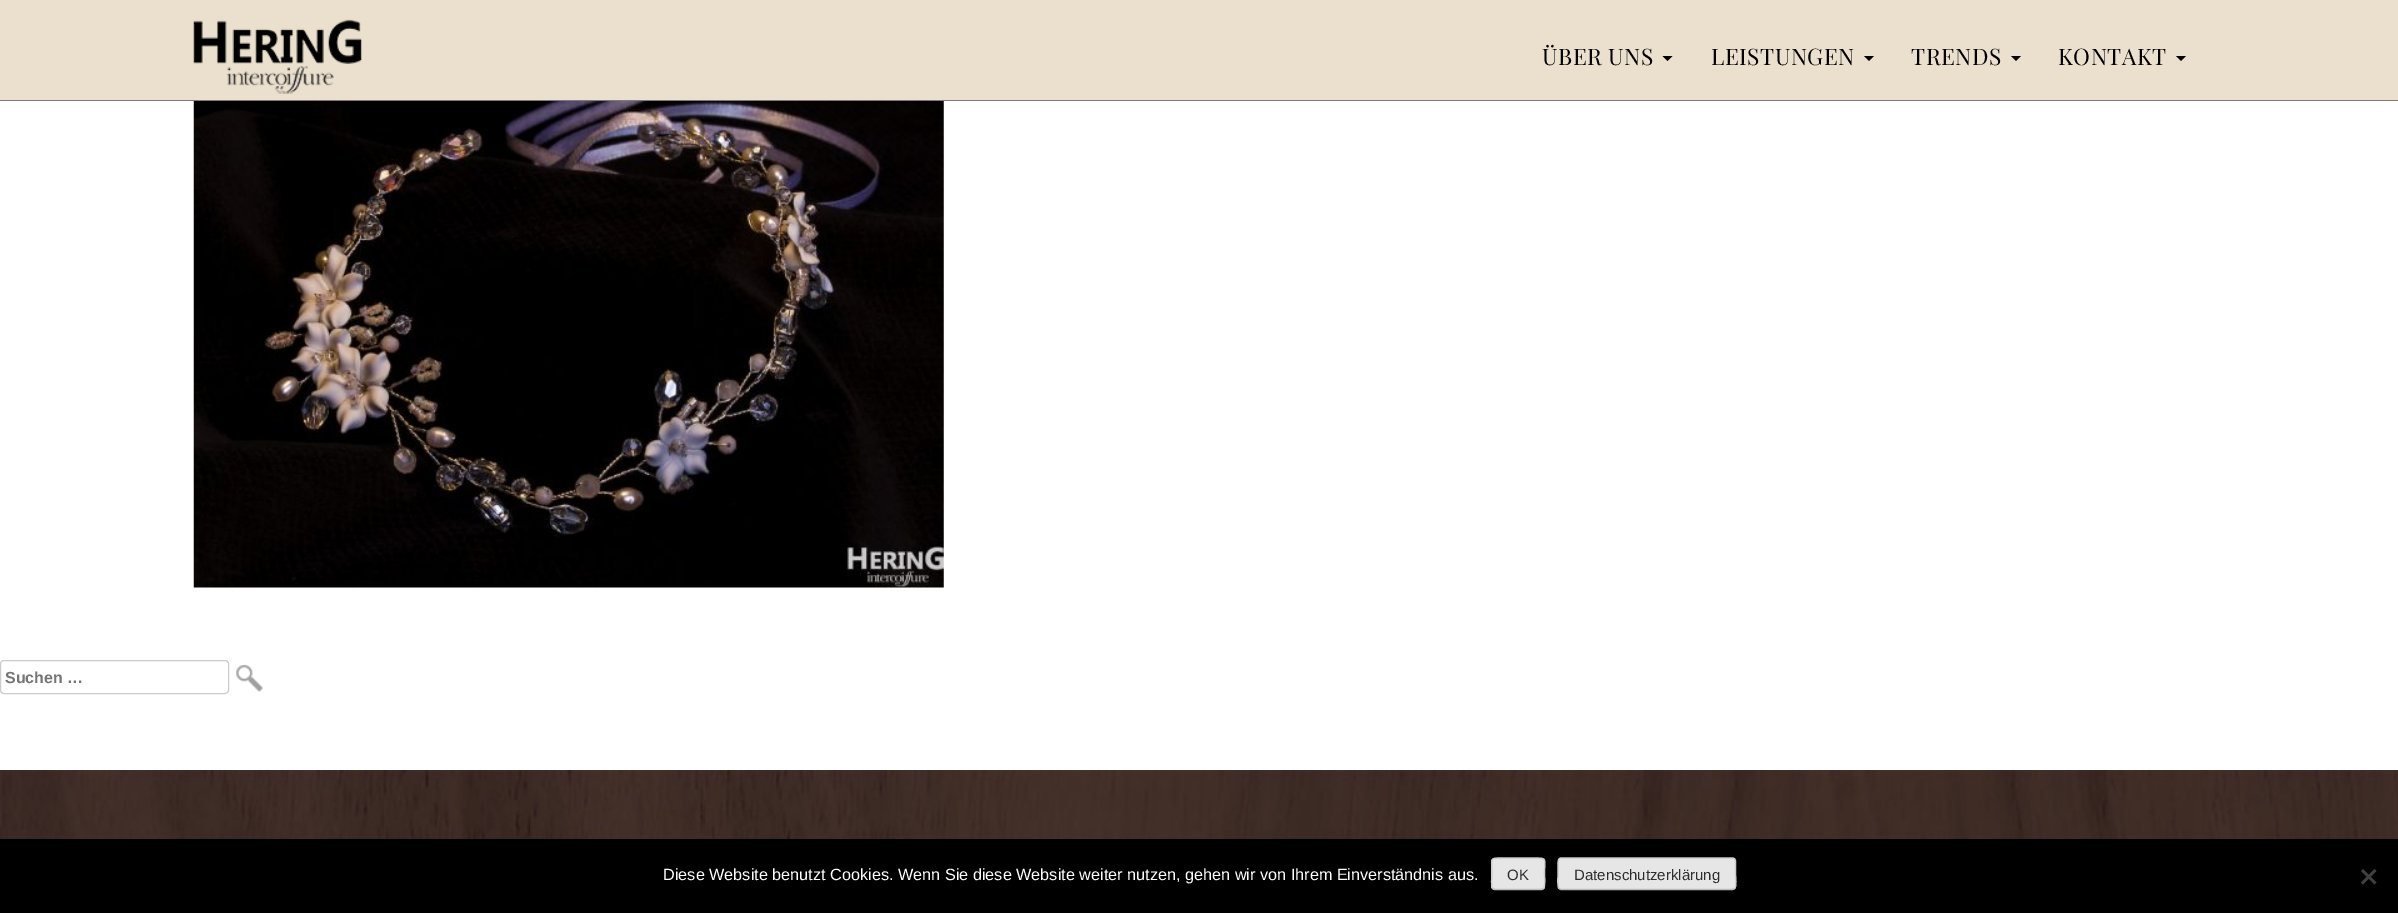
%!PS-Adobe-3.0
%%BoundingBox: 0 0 2398 913
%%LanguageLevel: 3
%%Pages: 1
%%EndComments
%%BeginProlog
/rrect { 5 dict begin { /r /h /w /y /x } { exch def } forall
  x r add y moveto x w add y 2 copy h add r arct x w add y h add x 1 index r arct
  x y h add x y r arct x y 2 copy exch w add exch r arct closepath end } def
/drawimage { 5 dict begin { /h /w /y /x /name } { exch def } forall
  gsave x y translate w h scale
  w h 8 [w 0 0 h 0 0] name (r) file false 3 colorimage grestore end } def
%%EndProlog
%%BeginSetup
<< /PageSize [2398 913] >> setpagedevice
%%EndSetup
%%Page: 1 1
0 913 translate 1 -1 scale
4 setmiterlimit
1 setgray
0 0 2398 913 rectfill
0.922 0.878 0.804 setrgbcolor
0 0 2398 100 rectfill
0.482 setgray
0 100 2398 1 rectfill
(images/1.raw) 193 19 169 75 drawimage
0 setgray
newpath 1662.5 56 moveto 1672.5 56 lineto 1667.5 61 lineto closepath fill
newpath 1864 56 moveto 1874 56 lineto 1869 61 lineto closepath fill
newpath 2011 56 moveto 2021 56 lineto 2016 61 lineto closepath fill
newpath 2176 56 moveto 2186 56 lineto 2181 61 lineto closepath fill
(images/2.raw) 193 101 751 487 drawimage
0.8 setgray
0.5 660.5 228 33 3.5 rrect stroke
(images/3.raw) 236 664 27 28 drawimage
(images/4.raw) 0 770 2398 69 drawimage
0 setgray
0 839 2398 74 rectfill
0.902 setgray
1491 858 54 32 4 rrect fill
0.733 setgray
1.2 setlinewidth
newpath 1543.5 888.5 moveto 1541.5 889.5 lineto 1494.5 889.5 lineto 1493 888.5 lineto stroke
0.8 setgray
newpath 1493 888.5 moveto 1490.5 886.5 1492 876.5 1492 874 curveto 1492 858 1488.5 858 1502.5 858 curveto 1533.5 858 lineto 1548 858 1544.5 858 1544.5 874 curveto 1544.5 876.5 1545.5 886.5 1543.5 888.5 curveto stroke
0.902 setgray
1558 858 178 32 4 rrect fill
0.733 setgray
newpath 1734.5 888.5 moveto 1732.5 889.5 lineto 1561 889.5 lineto 1559 888.5 lineto stroke
0.8 setgray
newpath 1559 888.5 moveto 1557 886.5 1558 876.5 1558 874 curveto 1558 865.5 lineto 1558 863 1557.5 858 1561 858 curveto 1732.5 858 lineto 1736.5 858 1735.5 863 1735.5 865.5 curveto 1735.5 874 lineto 1735.5 876.5 1737 886.5 1734.5 888.5 curveto stroke
0.251 setgray
newpath 2374.5 869 moveto 2376.5 871 lineto 2363 884.5 lineto 2361 882.5 lineto closepath fill
newpath 2361 871 moveto 2363 869 lineto 2376.5 882.5 lineto 2374.5 884.5 lineto closepath fill
/PlayfairDisplay-Regular [22.75 0 0 -22.75 0 0] selectfont
0 setgray
1542 65 moveto 0.5 0 (ÜBER UNS) ashow
1711 65 moveto 0.5 0 (LEISTUNGEN) ashow
1911 65 moveto 0.5 0 (TRENDS) ashow
2058 65 moveto 0.5 0 (KONTAKT) ashow
/LiberationSans-Bold [16 0 0 -16 0 0] selectfont
0.459 setgray
5 683 moveto (Suchen …) show
/LiberationSans-Regular [16.25 0 0 -16.25 0 0] selectfont
1 setgray
663 880 moveto (Diese Website benutzt Cookies. Wenn Sie diese Website weiter nutzen, gehen wir von Ihrem Einverständnis aus.) show
/LiberationSans-Regular [15 0 0 -15 0 0] selectfont
0.18 setgray
1507 880 moveto (OK) show
1574 880 moveto (Datenschutzerklärung) show
showpage
%%EOF
